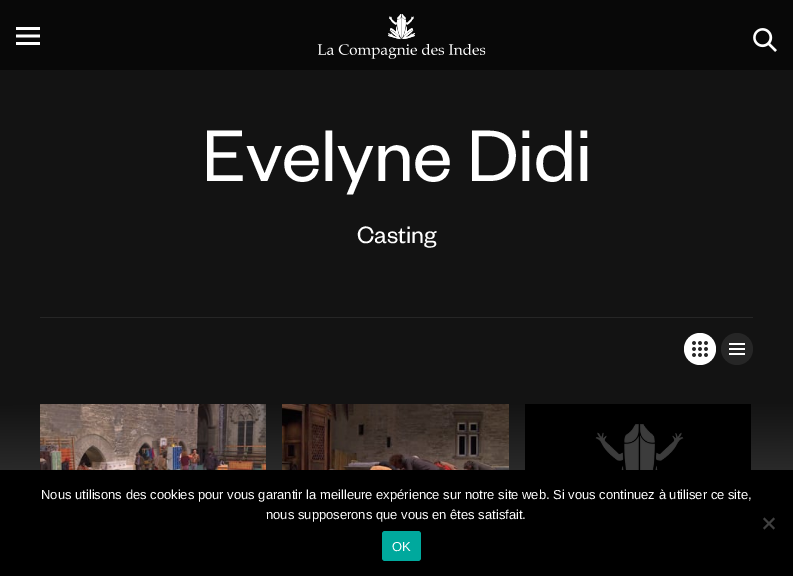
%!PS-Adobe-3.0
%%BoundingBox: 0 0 793 576
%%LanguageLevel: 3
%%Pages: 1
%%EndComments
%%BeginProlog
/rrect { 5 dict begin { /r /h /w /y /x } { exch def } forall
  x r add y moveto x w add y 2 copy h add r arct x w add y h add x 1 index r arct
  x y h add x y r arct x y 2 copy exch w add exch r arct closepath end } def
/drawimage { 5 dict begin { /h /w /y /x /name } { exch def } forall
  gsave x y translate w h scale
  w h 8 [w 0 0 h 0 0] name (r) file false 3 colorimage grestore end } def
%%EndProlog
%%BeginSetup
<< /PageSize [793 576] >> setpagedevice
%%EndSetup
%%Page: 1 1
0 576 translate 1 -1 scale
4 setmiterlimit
1 setgray
0 0 793 576 rectfill
0.031 setgray
0 0 793 70 rectfill
(images/1.raw) 16 27 24 18 drawimage
(images/2.raw) 317 14 169 45 drawimage
(images/3.raw) 753 28 24 24 drawimage
gsave newpath 0 70 moveto 793 70 lineto 793 470 lineto 0 470 lineto closepath clip newpath
<< /ShadingType 2 /ColorSpace /DeviceRGB /Coords [396 0 397 576] /Extend [true true] /Function << /FunctionType 3 /Domain [0 1] /Functions [<< /FunctionType 2 /Domain [0 1] /C0 [0.075 0.075 0.075] /C1 [0.075 0.075 0.075] /N 1 >> << /FunctionType 2 /Domain [0 1] /C0 [0.075 0.075 0.075] /C1 [0.302 0.302 0.302] /N 1 >>] /Bounds [0.7] /Encode [0 1 0 1] >> >> shfill grestore
0.149 setgray
40 317 713 1 rectfill
1 setgray
newpath 700 349 16 0 360 arc closepath fill
(images/4.raw) 692 341 16 16 drawimage
0.149 setgray
newpath 737 349 16 0 360 arc closepath fill
(images/5.raw) 729 343 16 12 drawimage
(images/6.raw) 40 404 226 66 drawimage
(images/7.raw) 282 404 227 66 drawimage
(images/8.raw) 525 404 226 66 drawimage
0 setgray
0 470 793 106 rectfill
0.251 setgray
newpath 773.5 517.5 moveto 775 519 lineto 764.5 529.5 lineto 763 528 lineto closepath fill
newpath 763 519 moveto 764.5 517.5 lineto 775 528 lineto 773.5 529.5 lineto closepath fill
0 0.663 0.616 setrgbcolor
382 531 39 30 3 rrect fill
/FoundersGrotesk-Regular [80 0 0 -80 0 0] selectfont
1 setgray
202 181 moveto (Evelyne Didi) show
/FoundersGrotesk-Regular [26 0 0 -26 0 0] selectfont
357 243 moveto (Casting) show
/LiberationSans-Regular [13 0 0 -13 0 0] selectfont
41 499 moveto (Nous utilisons des cookies pour vous garantir la meilleure expérience sur notre site web. Si vous continuez à utiliser ce site,) show
266 519 moveto (nous supposerons que vous en êtes satisfait.) show
392 551 moveto (OK) show
showpage
%%EOF
